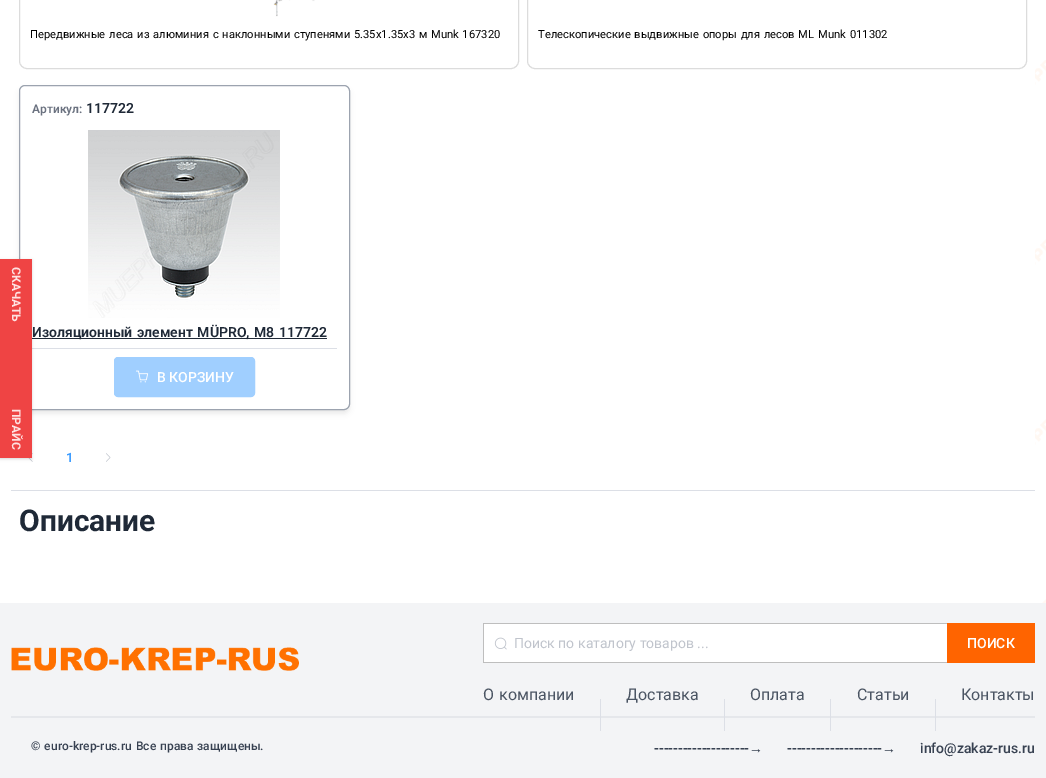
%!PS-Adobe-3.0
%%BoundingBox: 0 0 1046 778
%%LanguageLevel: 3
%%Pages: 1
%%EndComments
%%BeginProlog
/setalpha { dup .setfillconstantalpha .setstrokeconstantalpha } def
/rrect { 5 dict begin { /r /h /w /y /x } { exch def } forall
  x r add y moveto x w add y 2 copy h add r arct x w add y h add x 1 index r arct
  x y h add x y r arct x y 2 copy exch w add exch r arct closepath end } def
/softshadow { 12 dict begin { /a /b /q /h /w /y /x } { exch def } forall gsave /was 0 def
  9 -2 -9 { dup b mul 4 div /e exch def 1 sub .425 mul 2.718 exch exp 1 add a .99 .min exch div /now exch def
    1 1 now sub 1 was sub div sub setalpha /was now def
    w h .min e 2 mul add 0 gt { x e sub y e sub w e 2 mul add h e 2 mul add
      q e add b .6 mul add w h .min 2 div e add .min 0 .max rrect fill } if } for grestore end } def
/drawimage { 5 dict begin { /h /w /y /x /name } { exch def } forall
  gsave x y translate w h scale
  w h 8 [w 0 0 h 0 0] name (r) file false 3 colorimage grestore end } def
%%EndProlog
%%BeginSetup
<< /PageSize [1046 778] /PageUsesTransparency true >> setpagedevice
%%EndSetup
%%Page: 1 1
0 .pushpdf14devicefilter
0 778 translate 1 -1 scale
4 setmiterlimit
1 setgray
0 0 1046 778 rectfill
(images/1.raw) 1035 60 11 543 drawimage
gsave
newpath 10 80 moveto 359 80 lineto 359 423 lineto 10 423 lineto closepath 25 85 moveto 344 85 lineto 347.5 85 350 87.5 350 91 curveto 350 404 lineto 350 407.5 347.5 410 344 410 curveto 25 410 lineto 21.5 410 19 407.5 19 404 curveto 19 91 lineto 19 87.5 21.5 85 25 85 curveto closepath eoclip newpath
0 setgray
20 90 329 323 5 3 0.1 softshadow
grestore
0.612 0.639 0.686 setrgbcolor
19.5 85.5 330 324 5.5 rrect stroke
0.122 0.161 0.216 setrgbcolor
32 338 295 1 rectfill
0.863 0.875 0.902 setrgbcolor
32 348 305 1 rectfill
(images/5.raw) 28 453 5 9 drawimage
0 setgray
0 260 32 199 0 1 0.06 softshadow
0 260 32 199 0 1.5 0.1 softshadow
0.937 0.267 0.267 setrgbcolor
0 259 32 199 rectfill
0.863 setgray
19.5 -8.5 499 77 7.5 rrect stroke
(images/2.raw) 273 0 42 17 drawimage
527.5 -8.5 499 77 7.5 rrect stroke
(images/3.raw) 88 130 192 188 drawimage
0.627 0.812 1 setrgbcolor
114.5 357.5 140 39 3.5 rrect gsave fill grestore
stroke
(images/4.raw) 136 370 13 13 drawimage
(images/6.raw) 106 453 5 9 drawimage
0.863 0.875 0.902 setrgbcolor
11 490 1024 1 rectfill
0.953 0.957 0.965 setrgbcolor
0 603 1046 175 rectfill
(images/7.raw) 11 647 288 24 drawimage
1 setgray
483 623 464 40 rectfill
(images/8.raw) 494 637 13 13 drawimage
0.745 setgray
newpath 483 623 moveto 947 623 lineto 947 624 lineto 484 624 lineto closepath fill
newpath 947 663 moveto 483 663 lineto 484 662 lineto 947 662 lineto closepath fill
0.48 setalpha
0.467 setgray
newpath 483 663 moveto 483 623 lineto 484 624 lineto 484 662 lineto closepath fill
1 setalpha
1 0.392 0 setrgbcolor
947 623 88 40 rectfill
0.898 0.906 0.922 setrgbcolor
11 716 1024 2 rectfill
0.863 0.875 0.902 setrgbcolor
600 699 1 32 rectfill
724 699 1 32 rectfill
830 699 1 32 rectfill
935 699 1 32 rectfill
/Roboto-Bold [12 0 0 -12 0 0] selectfont
0.996 0.886 0.886 setrgbcolor
gsave 12 267 translate 90 rotate 0 0 moveto 84 0 32 (СКАЧАТЬ ПРАЙС) widthshow grestore
/Roboto-Regular [11.2 0 0 -11.2 0 0] selectfont
0 setgray
30 38 moveto 1 0 32 (Передвижные леса из алюминия с наклонными ступенями 5.35x1.35x3 м Munk 167320) widthshow
538 38 moveto 1 0 32 (Телескопические выдвижные опоры для лесов ML Munk 011302) widthshow
/Roboto-SemiBold [12 0 0 -12 0 0] selectfont
0.42 0.447 0.502 setrgbcolor
32 113 moveto (Артикул:) show
/Roboto-SemiBold [14 0 0 -14 0 0] selectfont
0.122 0.161 0.216 setrgbcolor
86 113 moveto (117722) show
32 337 moveto 1 0 32 (Изоляционный элемент MÜPRO, М8 117722) widthshow
/Roboto-Medium [14 0 0 -14 0 0] selectfont
1 setgray
157 382 moveto (В КОРЗИНУ) show
/Roboto-Bold [13 0 0 -13 0 0] selectfont
0.251 0.62 1 setrgbcolor
66 462 moveto (1) show
/Roboto-Bold [30 0 0 -30 0 0] selectfont
0.122 0.161 0.216 setrgbcolor
19 531 moveto (Описание) show
/Roboto-Regular [14 0 0 -14 0 0] selectfont
0.753 0.769 0.8 setrgbcolor
514 648 moveto (Поиск по каталогу товаров ...) show
/Roboto-Medium [14 0 0 -14 0 0] selectfont
1 setgray
967 648 moveto (ПОИСК) show
/Roboto-Regular [16 0 0 -16 0 0] selectfont
0.294 0.333 0.388 setrgbcolor
483 700 moveto 1 0 32 (О компании) widthshow
626 700 moveto (Доставка) show
750 700 moveto (Оплата) show
857 700 moveto (Статьи) show
961 700 moveto (Контакты) show
/Roboto-Medium [12 0 0 -12 0 0] selectfont
0.216 0.255 0.318 setrgbcolor
31 750 moveto 1 0 32 (© euro-krep-rus.ru Все права защищены.) widthshow
/Roboto-Medium [14 0 0 -14 0 0] selectfont
654 753 moveto (--------------------) show
/LiberationSans-Regular [14 0 0 -14 0 0] selectfont
749 753 moveto (→) show
/Roboto-Medium [14 0 0 -14 0 0] selectfont
787 753 moveto (--------------------) show
/LiberationSans-Regular [14 0 0 -14 0 0] selectfont
882 753 moveto (→) show
/Roboto-Medium [14 0 0 -14 0 0] selectfont
920 753 moveto (info@zakaz-rus.ru) show
.poppdf14devicefilter showpage
%%EOF
